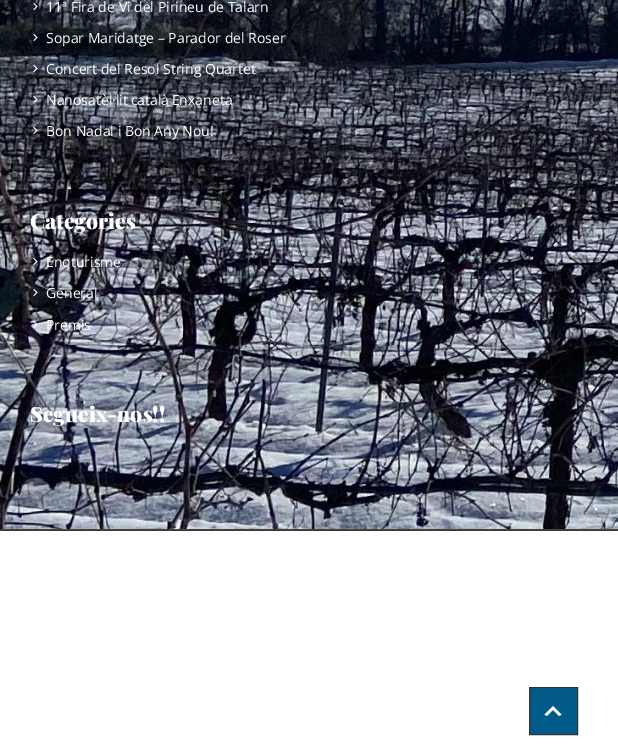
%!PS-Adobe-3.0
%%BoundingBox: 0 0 618 755
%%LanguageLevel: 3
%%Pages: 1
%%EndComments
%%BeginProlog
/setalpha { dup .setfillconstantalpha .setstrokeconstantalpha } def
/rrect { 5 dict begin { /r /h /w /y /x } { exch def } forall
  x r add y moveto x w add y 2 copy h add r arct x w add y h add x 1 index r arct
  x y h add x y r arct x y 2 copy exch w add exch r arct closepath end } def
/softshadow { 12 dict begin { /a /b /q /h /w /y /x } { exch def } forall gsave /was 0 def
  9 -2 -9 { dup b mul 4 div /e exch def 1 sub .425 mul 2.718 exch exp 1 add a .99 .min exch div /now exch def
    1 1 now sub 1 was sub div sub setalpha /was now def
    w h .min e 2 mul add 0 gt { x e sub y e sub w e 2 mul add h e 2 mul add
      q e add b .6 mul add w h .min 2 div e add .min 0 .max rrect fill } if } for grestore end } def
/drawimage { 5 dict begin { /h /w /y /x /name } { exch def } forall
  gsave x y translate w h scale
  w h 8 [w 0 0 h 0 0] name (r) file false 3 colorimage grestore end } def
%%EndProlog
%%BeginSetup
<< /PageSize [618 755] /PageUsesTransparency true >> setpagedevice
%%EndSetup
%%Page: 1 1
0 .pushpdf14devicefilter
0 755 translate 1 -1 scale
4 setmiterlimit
1 setgray
0 0 618 755 rectfill
(images/1.raw) 0 0 618 529 drawimage
gsave
newpath 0 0 moveto 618 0 lineto 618 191 lineto 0 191 lineto closepath 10 -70 moveto 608 -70 lineto 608 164 lineto 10 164 lineto closepath eoclip newpath
0 setgray
10 -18 598 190 0 6 0.18 softshadow
grestore
(images/2.raw) 33 2 5 9 drawimage
(images/3.raw) 33 33 5 9 drawimage
(images/4.raw) 33 64 5 9 drawimage
(images/5.raw) 33 95 5 9 drawimage
(images/6.raw) 33 126 5 9 drawimage
gsave
newpath 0 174 moveto 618 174 lineto 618 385 lineto 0 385 lineto closepath 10 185 moveto 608 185 lineto 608 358 lineto 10 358 lineto closepath eoclip newpath
0 setgray
10 193 598 173 0 6 0.18 softshadow
grestore
(images/7.raw) 33 257 5 9 drawimage
(images/8.raw) 33 288 5 9 drawimage
(images/9.raw) 33 320 5 9 drawimage
gsave
newpath 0 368 moveto 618 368 lineto 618 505 lineto 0 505 lineto closepath 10 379 moveto 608 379 lineto 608 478 lineto 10 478 lineto closepath eoclip newpath
0 setgray
10 387 598 99 0 6 0.18 softshadow
grestore
0.267 setgray
0 529 618 1 rectfill
0.22 setgray
0 530 618 1 rectfill
0 0.353 0.529 setrgbcolor
newpath 529.5 687.5 moveto 577.5 687.5 lineto 577.5 734.5 lineto 529.5 734.5 lineto closepath gsave fill grestore
0.2 setgray
stroke
1 setgray
newpath 559 716 moveto 553 710 lineto 547 716 lineto 544.5 714.5 lineto 553 706 lineto 561.5 714.5 lineto closepath fill
/OpenSans-Regular [14 0 0 -14 0 0] selectfont
46 12 moveto (11ª Fira de Vi del Pirineu de Talarn) show
46 43 moveto (Sopar Maridatge – Parador del Roser) show
46 74 moveto (Concert del Resol String Quartet) show
46 105 moveto -1 0 32 (Nanosatèl·lit català Enxaneta) widthshow
46 136 moveto (Bon Nadal i Bon Any Nou!) show
/PlayfairDisplay-Black [21 0 0 -21 0 0] selectfont
30 229 moveto (Categories) show
/OpenSans-Regular [14 0 0 -14 0 0] selectfont
46 267 moveto (Enoturisme) show
46 298 moveto (General) show
46 330 moveto (Premis) show
/PlayfairDisplay-Black [21 0 0 -21 0 0] selectfont
30 422 moveto (Segueix-nos!!) show
.poppdf14devicefilter showpage
%%EOF
